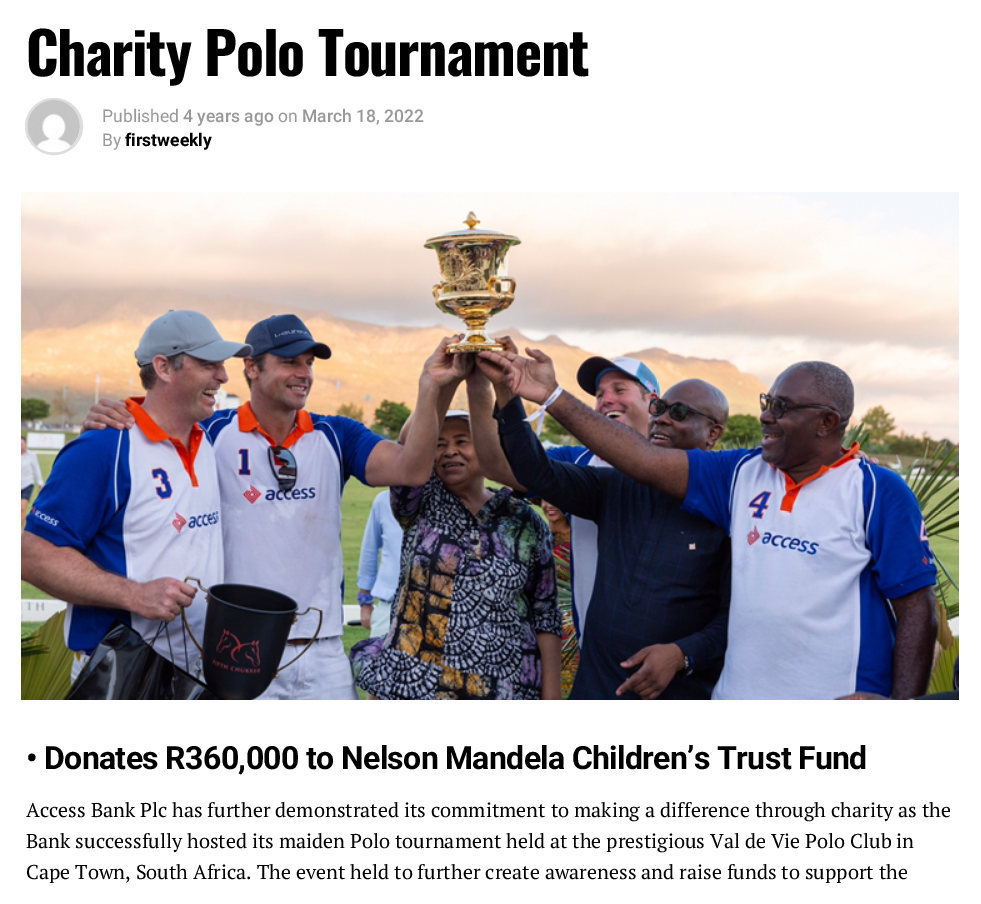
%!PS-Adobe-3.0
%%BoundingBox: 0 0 981 904
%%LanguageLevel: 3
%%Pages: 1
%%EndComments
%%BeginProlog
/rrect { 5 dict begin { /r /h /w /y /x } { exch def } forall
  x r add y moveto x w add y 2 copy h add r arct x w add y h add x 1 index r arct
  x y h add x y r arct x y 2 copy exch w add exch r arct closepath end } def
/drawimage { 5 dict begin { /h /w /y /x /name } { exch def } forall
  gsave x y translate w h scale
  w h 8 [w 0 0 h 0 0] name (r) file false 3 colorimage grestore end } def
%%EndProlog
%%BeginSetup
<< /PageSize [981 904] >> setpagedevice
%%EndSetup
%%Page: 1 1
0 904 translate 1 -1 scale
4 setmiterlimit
1 setgray
0 0 981 904 rectfill
0.867 setgray
3 setlinewidth
26.5 99.5 55 54 27 rrect stroke
(images/1.raw) 27 100 53 53 drawimage
(images/2.raw) 21 192 938 508 drawimage
/Oswald-Bold [58 0 0 -58 0 0] selectfont
0 setgray
26 76 moveto -1.2 0 (Charity Polo Tournament) ashow
/Roboto-Regular [17.5 0 0 -17.5 0 0] selectfont
0.6 setgray
102 122 moveto (Published) show
/Roboto-Medium [17.5 0 0 -17.5 0 0] selectfont
183 122 moveto (4 years ago) show
/Roboto-Regular [17.5 0 0 -17.5 0 0] selectfont
278 122 moveto (on) show
/Roboto-Medium [17.5 0 0 -17.5 0 0] selectfont
302 122 moveto (March 18, 2022) show
/Roboto-Regular [17.5 0 0 -17.5 0 0] selectfont
102 146 moveto (By) show
/Roboto-Bold [17.5 0 0 -17.5 0 0] selectfont
0 setgray
125 146 moveto (firstweekly) show
/Roboto-Bold [32 0 0 -32 0 0] selectfont
26 769 moveto -0.65 0 (• Donates R360,000 to Nelson Mandela Children’s Trust Fund) ashow
/PTSerif-Regular [20 0 0 -20 0 0] selectfont
26 817 moveto (Access Bank Plc has further demonstrated its commitment to making a difference through charity as the) show
26 848 moveto (Bank successfully hosted its maiden Polo tournament held at the prestigious Val de Vie Polo Club in) show
26 879 moveto (Cape Town, South Africa. The event held to further create awareness and raise funds to support the) show
showpage
%%EOF
